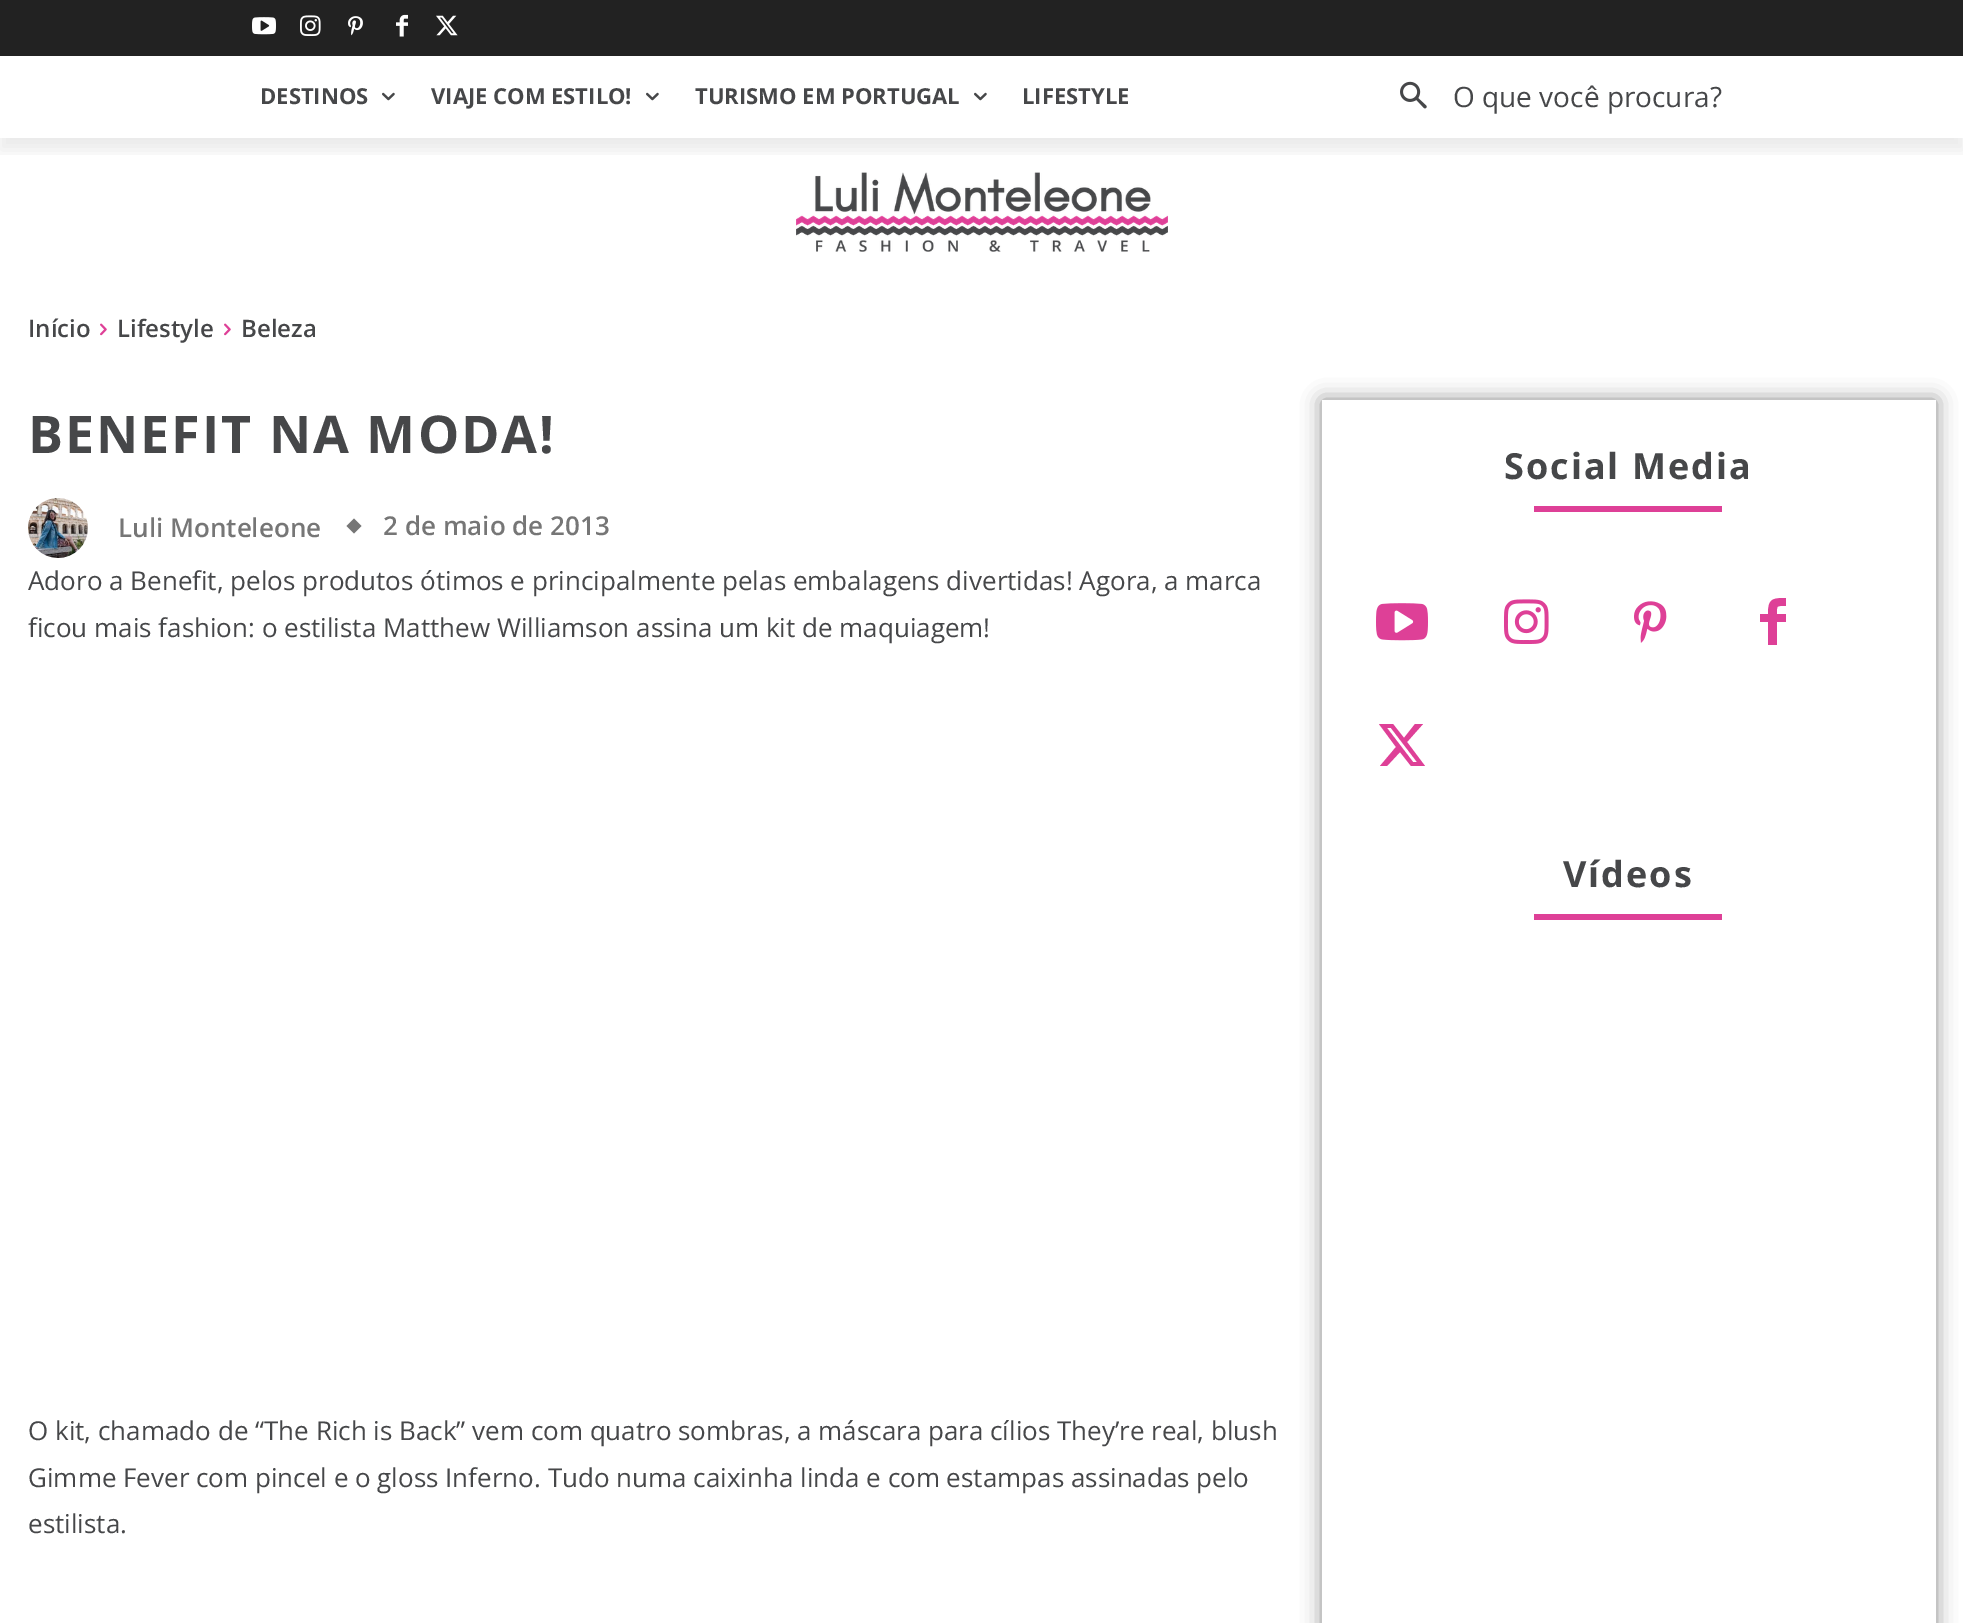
%!PS-Adobe-3.0
%%BoundingBox: 0 0 1963 1623
%%LanguageLevel: 3
%%Pages: 1
%%EndComments
%%BeginProlog
/setalpha { dup .setfillconstantalpha .setstrokeconstantalpha } def
/rrect { 5 dict begin { /r /h /w /y /x } { exch def } forall
  x r add y moveto x w add y 2 copy h add r arct x w add y h add x 1 index r arct
  x y h add x y r arct x y 2 copy exch w add exch r arct closepath end } def
/softshadow { 12 dict begin { /a /b /q /h /w /y /x } { exch def } forall gsave /was 0 def
  9 -2 -9 { dup b mul 4 div /e exch def 1 sub .425 mul 2.718 exch exp 1 add a .99 .min exch div /now exch def
    1 1 now sub 1 was sub div sub setalpha /was now def
    w h .min e 2 mul add 0 gt { x e sub y e sub w e 2 mul add h e 2 mul add
      q e add b .6 mul add w h .min 2 div e add .min 0 .max rrect fill } if } for grestore end } def
/drawimage { 5 dict begin { /h /w /y /x /name } { exch def } forall
  gsave x y translate w h scale
  w h 8 [w 0 0 h 0 0] name (r) file false 3 colorimage grestore end } def
%%EndProlog
%%BeginSetup
<< /PageSize [1963 1623] /PageUsesTransparency true >> setpagedevice
%%EndSetup
%%Page: 1 1
0 .pushpdf14devicefilter
0 1623 translate 1 -1 scale
4 setmiterlimit
1 setgray
0 0 1963 1623 rectfill
0.133 setgray
0 0 1963 56 rectfill
(images/1.raw) 252 17 24 18 drawimage
(images/2.raw) 300 15 21 21 drawimage
(images/3.raw) 348 16 15 20 drawimage
(images/4.raw) 396 14 12 23 drawimage
(images/5.raw) 436 15 22 21 drawimage
(images/8.raw) 796 172 372 80 drawimage
gsave
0 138 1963 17 rectclip
0 setgray
0 68 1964 82 0 8 0.08 softshadow
grestore
(images/6.raw) 382 92 13 9 drawimage
(images/6.raw) 646 92 13 9 drawimage
(images/6.raw) 974 92 13 9 drawimage
(images/7.raw) 1400 81 27 28 drawimage
(images/9.raw) 100 323 7 13 drawimage
(images/9.raw) 224 323 7 13 drawimage
(images/10.raw) 28 498 60 60 drawimage
0.463 setgray
newpath 361.5 526 moveto 354 533.5 lineto 346.5 526 lineto 354 518.5 lineto closepath fill
gsave
newpath 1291 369 moveto 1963 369 lineto 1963 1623 lineto 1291 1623 lineto closepath 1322 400 moveto 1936 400 lineto 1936 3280 lineto 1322 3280 lineto closepath eoclip newpath
0.533 setgray
1322 400 614 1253 0 10 1 softshadow
grestore
0.871 0.251 0.592 setrgbcolor
1534 506 188 6 rectfill
(images/11.raw) 1376 603 52 38 drawimage
(images/12.raw) 1504 599 45 45 drawimage
(images/13.raw) 1634 601 33 42 drawimage
newpath 1786 606 moveto 1776 606 1777 605 1777 614 curveto 1786 614 lineto 1786 622 lineto 1777 622 lineto 1777 645 lineto 1768 645 lineto 1768 622 lineto 1760 622 lineto 1760 614 lineto 1768 614 lineto 1768 599 1772 598 1786 598 curveto closepath fill
newpath 1415 724 moveto 1423 724 lineto 1407 742 lineto 1425 766 lineto 1411 766 lineto 1400 752 lineto 1387 766 lineto 1380 766 lineto 1396 747 lineto 1379 724 lineto 1393 724 lineto 1404 738 lineto closepath 1413 762 moveto 1417 762 lineto 1391 728 lineto 1387 728 lineto closepath fill
1534 914 188 6 rectfill
/OpenSans-Bold [22 0 0 -22 0 0] selectfont
0.275 0.278 0.286 setrgbcolor
260 104 moveto (DESTINOS) show
431 104 moveto (VIAJE COM ESTILO!) show
695 104 moveto (TURISMO EM PORTUGAL) show
1022 104 moveto (LIFESTYLE) show
/OpenSans-Regular [28 0 0 -28 0 0] selectfont
1453 107 moveto (O que você procura?) show
/OpenSans-SemiBold [24 0 0 -24 0 0] selectfont
28 337 moveto (Início) show
117 337 moveto (Lifestyle) show
241 337 moveto (Beleza) show
/OpenSans-Bold [52 0 0 -52 0 0] selectfont
28 453 moveto 2 0 (BENEFIT NA MODA!) ashow
/OpenSans-SemiBold [26 0 0 -26 0 0] selectfont
0.463 setgray
118 537 moveto (Luli Monteleone) show
383 535 moveto (2 de maio de 2013) show
/OpenSans-Regular [26 0 0 -26 0 0] selectfont
0.275 0.278 0.286 setrgbcolor
28 590 moveto (Adoro a Benefit, pelos produtos ótimos e principalmente pelas embalagens divertidas! Agora, a marca) show
28 637 moveto (ficou mais fashion: o estilista Matthew Williamson assina um kit de maquiagem!) show
28 1440 moveto (O kit, chamado de “The Rich is Back” vem com quatro sombras, a máscara para cílios They’re real, blush) show
28 1487 moveto (Gimme Fever com pincel e o gloss Inferno. Tudo numa caixinha linda e com estampas assinadas pelo) show
28 1533 moveto (estilista.) show
/OpenSans-Bold [36 0 0 -36 0 0] selectfont
1504 479 moveto 2 0 (Social Media) ashow
1563 887 moveto 2 0 (Vídeos) ashow
.poppdf14devicefilter showpage
%%EOF
